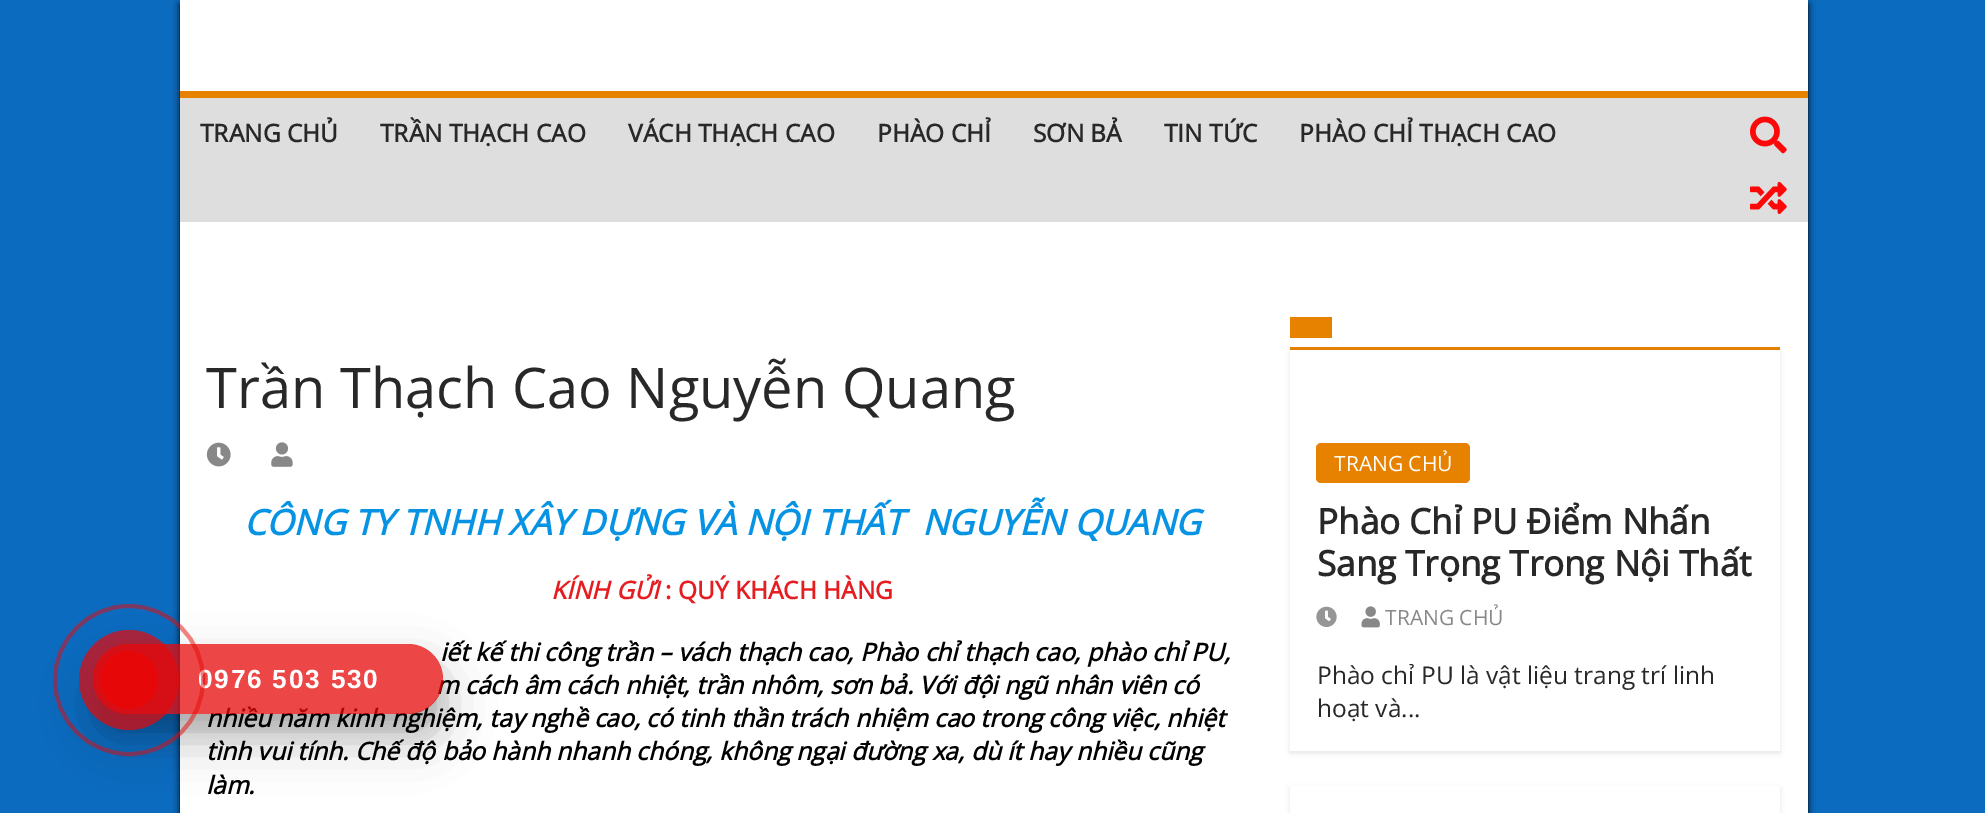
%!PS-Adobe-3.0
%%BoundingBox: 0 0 1985 813
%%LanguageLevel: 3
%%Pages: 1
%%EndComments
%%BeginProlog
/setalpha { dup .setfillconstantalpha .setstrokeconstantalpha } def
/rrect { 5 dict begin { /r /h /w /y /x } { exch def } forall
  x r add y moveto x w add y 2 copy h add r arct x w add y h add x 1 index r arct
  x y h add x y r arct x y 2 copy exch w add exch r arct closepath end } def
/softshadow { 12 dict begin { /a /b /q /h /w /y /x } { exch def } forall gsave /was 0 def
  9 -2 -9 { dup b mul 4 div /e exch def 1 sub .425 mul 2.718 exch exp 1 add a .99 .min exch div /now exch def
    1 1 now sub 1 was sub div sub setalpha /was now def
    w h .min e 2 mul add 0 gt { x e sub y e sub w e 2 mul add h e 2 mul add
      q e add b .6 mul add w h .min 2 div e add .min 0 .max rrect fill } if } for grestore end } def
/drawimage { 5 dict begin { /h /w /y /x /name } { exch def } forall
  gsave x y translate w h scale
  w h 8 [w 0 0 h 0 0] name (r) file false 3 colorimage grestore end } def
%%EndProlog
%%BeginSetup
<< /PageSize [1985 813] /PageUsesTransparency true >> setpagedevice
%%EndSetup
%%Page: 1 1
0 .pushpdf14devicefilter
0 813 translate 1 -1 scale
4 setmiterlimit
0.043 0.42 0.749 setrgbcolor
0 0 1985 813 rectfill
0 setgray
180 4 1628 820 0 3.5 1 softshadow
1 setgray
180 0 1628 813 rectfill
0.871 setgray
180 98 1628 124 rectfill
0.906 0.51 0 setrgbcolor
180 91 1628 7 rectfill
(images/1.raw) 1750 116 37 38 drawimage
(images/2.raw) 1750 181 37 33 drawimage
(images/3.raw) 206 442 25 25 drawimage
(images/4.raw) 271 442 22 25 drawimage
1290 347 490 3 rectfill
1290 317 42 21 rectfill
0 setgray
1290 352 490 401 0 2.5 0.1 softshadow
1 setgray
1290 350 490 401 rectfill
0.906 0.51 0 setrgbcolor
1316 443 154 40 5 rrect fill
(images/5.raw) 1316 606 21 21 drawimage
(images/6.raw) 1361 606 19 22 drawimage
0 setgray
1290 788 490 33 0 2.5 0.1 softshadow
1 setgray
1290 786 490 27 rectfill
gsave
newpath 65 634 moveto 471 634 lineto 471 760 lineto 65 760 lineto closepath 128 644 moveto 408 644 lineto 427.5 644 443 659.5 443 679 curveto 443 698.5 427.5 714 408 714 curveto 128 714 lineto 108.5 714 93 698.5 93 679 curveto 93 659.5 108.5 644 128 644 curveto closepath eoclip newpath
0 setgray
93 662 350 70 35 9 0.1 softshadow
grestore
gsave
newpath 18 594 moveto 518 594 lineto 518 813 lineto 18 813 lineto closepath 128 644 moveto 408 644 lineto 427.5 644 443 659.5 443 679 curveto 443 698.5 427.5 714 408 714 curveto 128 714 lineto 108.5 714 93 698.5 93 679 curveto 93 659.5 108.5 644 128 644 curveto closepath eoclip newpath
0 setgray
93 669 350 70 35 24.5 0.25 softshadow
grestore
/OpenSans-Bold [24.5 0 0 -24.5 0 0] selectfont
0.157 setgray
200 142 moveto (TRANG CHỦ) show
380 142 moveto (TRẦN THẠCH CAO) show
628 142 moveto (VÁCH THẠCH CAO) show
877 142 moveto (PHÀO CHỈ) show
1033 142 moveto (SƠN BẢ) show
1164 142 moveto (TIN TỨC) show
1299 142 moveto (PHÀO CHỈ THẠCH CAO) show
/OpenSans-Regular [56 0 0 -56 0 0] selectfont
206 408 moveto (Trần Thạch Cao Nguyễn Quang) show
/OpenSans-BoldItalic [35 0 0 -35 0 0] selectfont
0.024 0.576 0.89 setrgbcolor
244 535 moveto (CÔNG TY TNHH XÂY DỰNG VÀ NỘI THẤT  NGUYỄN QUANG) show
/OpenSans-BoldItalic [24.5 0 0 -24.5 0 0] selectfont
0.898 0.11 0.125 setrgbcolor
551 599 moveto (KÍNH GỬI) show
/OpenSans-Bold [24.5 0 0 -24.5 0 0] selectfont
665 599 moveto (: QUÝ KHÁCH HÀNG) show
/OpenSans-BoldItalic [24.5 0 0 -24.5 0 0] selectfont
0 setgray
440 661 moveto (iết kế thi công trần – vách thạch cao, Phào chỉ thạch cao, phào chỉ PU,) show
436 694 moveto (m cách âm cách nhiệt, trần nhôm, sơn bả. Với đội ngũ nhân viên có) show
206 727 moveto (nhiều năm kinh nghiệm, tay nghề cao, có tinh thần trách nhiệm cao trong công việc, nhiệt) show
206 760 moveto (tình vui tính. Chế độ bảo hành nhanh chóng, không ngại đường xa, dù ít hay nhiều cũng) show
206 794 moveto (làm.) show
/OpenSans-Regular [21 0 0 -21 0 0] selectfont
1 setgray
1334 471 moveto (TRANG CHỦ) show
/OpenSans-Bold [35 0 0 -35 0 0] selectfont
0.157 setgray
1317 534 moveto (Phào Chỉ PU Điểm Nhấn) show
1317 576 moveto (Sang Trọng Trong Nội Thất) show
/OpenSans-Regular [21 0 0 -21 0 0] selectfont
0.533 setgray
1385 625 moveto (TRANG CHỦ) show
/OpenSans-Regular [24.5 0 0 -24.5 0 0] selectfont
0.157 setgray
1317 684 moveto (Phào chỉ PU là vật liệu trang trí linh) show
1317 717 moveto (hoạt và...) show
0.75 setalpha
0.902 0.031 0.031 setrgbcolor
93 644 350 70 35 rrect fill
/LiberationSans-Bold [26.25 0 0 -26.25 0 0] selectfont
1 setalpha
1 setgray
198 688 moveto 1.75 0 (0976 503 530) ashow
0.5 setalpha
0.902 0.031 0.031 setrgbcolor
4 setlinewidth
newpath 129 680 74 0 360 arc closepath stroke
0.7 setalpha
newpath 129 680 50 0 360 arc closepath fill
1 setalpha
newpath 129 680 29 0 360 arc closepath fill
.poppdf14devicefilter showpage
%%EOF
